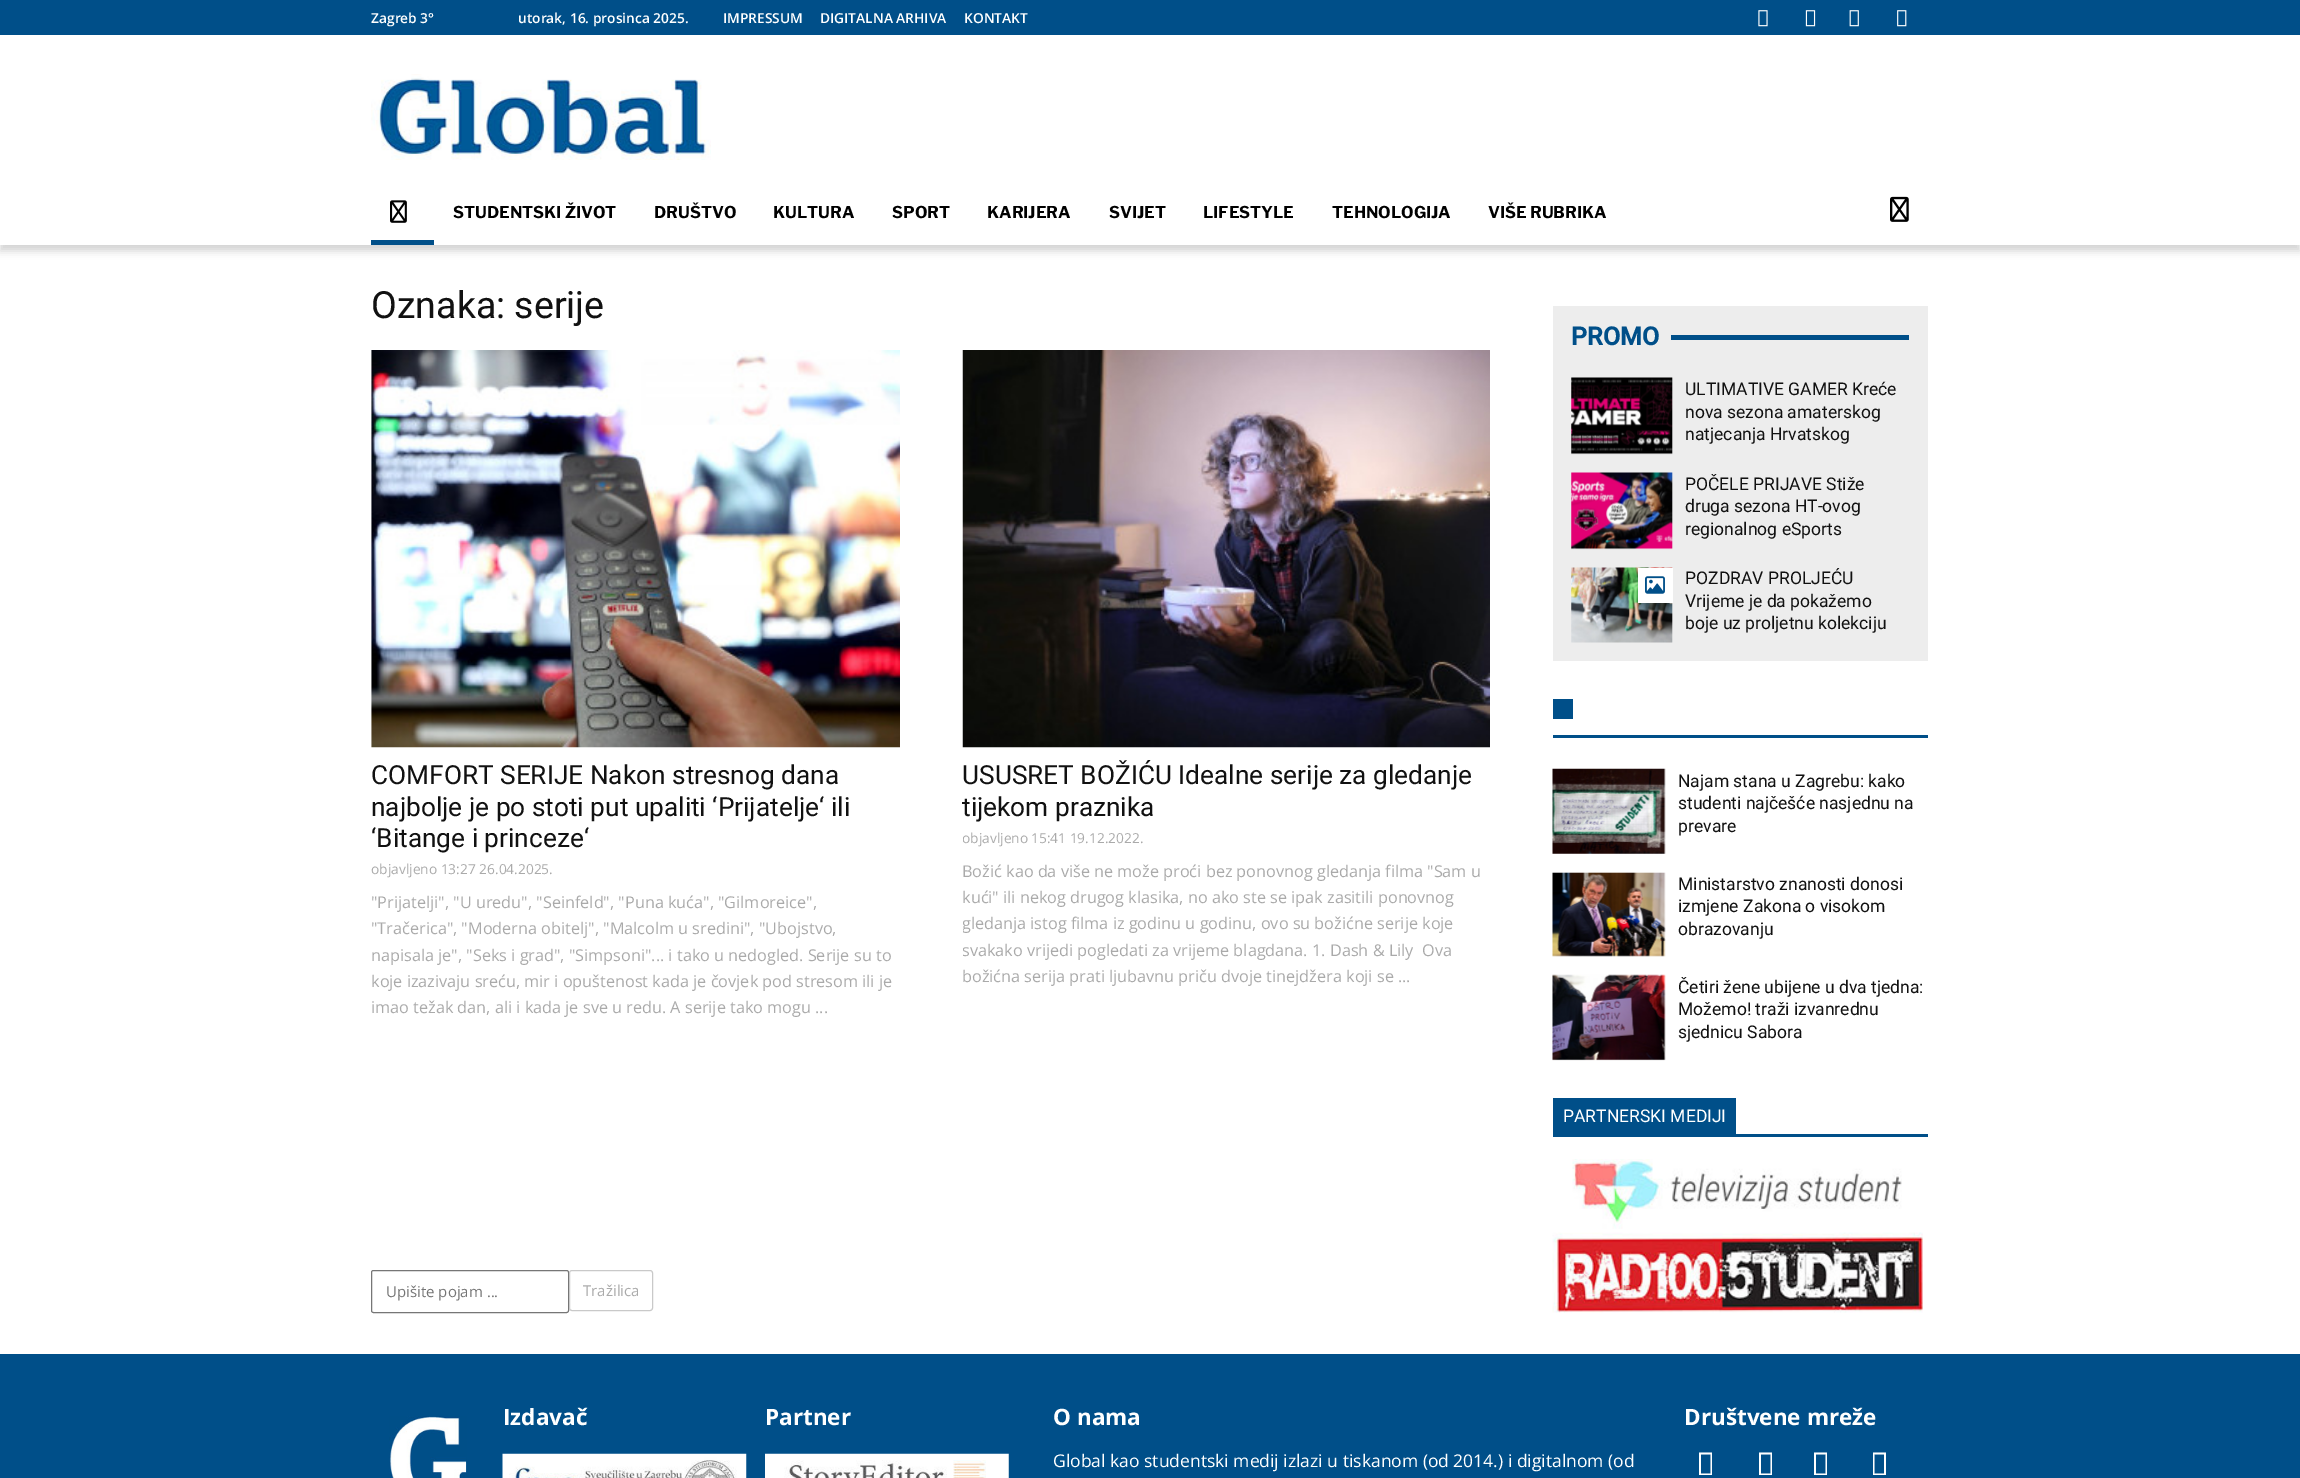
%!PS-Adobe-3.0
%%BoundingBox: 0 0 2300 1478
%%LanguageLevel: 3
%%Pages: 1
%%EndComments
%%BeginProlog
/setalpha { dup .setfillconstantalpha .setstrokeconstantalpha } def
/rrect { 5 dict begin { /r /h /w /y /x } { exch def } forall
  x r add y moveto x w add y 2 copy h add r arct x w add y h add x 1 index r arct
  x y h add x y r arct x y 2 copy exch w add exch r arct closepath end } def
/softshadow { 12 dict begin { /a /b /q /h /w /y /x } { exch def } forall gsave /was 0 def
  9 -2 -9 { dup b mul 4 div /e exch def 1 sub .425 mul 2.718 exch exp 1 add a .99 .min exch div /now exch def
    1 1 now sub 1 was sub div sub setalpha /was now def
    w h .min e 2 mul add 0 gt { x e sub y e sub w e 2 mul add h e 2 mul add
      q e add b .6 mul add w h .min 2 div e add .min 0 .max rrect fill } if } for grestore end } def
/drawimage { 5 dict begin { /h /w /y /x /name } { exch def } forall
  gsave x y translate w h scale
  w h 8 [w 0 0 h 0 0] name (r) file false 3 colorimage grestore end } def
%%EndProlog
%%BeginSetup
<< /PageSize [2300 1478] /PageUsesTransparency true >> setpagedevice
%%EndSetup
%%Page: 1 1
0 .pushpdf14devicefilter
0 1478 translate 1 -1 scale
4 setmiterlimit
1 setgray
0 0 2300 1478 rectfill
0.827 setgray
0 8 2300 243 0 4 1 softshadow
0 0.31 0.537 setrgbcolor
0 0 2300 35 rectfill
(images/1.raw) 1758 10 10 17 drawimage
(images/2.raw) 1805 10 11 17 drawimage
(images/3.raw) 1849 10 10 17 drawimage
(images/4.raw) 1897 10 10 17 drawimage
1 setgray
0 35 2300 210 rectfill
(images/5.raw) 371 74 340 86 drawimage
(images/6.raw) 390 200 17 23 drawimage
0 0.31 0.537 setrgbcolor
371 240 63 5 rectfill
(images/7.raw) 1890 196 19 26 drawimage
(images/8.raw) 371 350 529 398 drawimage
(images/9.raw) 962 350 528 398 drawimage
0.463 setgray
371.5 1270.5 197 42 2 rrect stroke
0.788 setgray
569.5 1270.5 83 40 2.5 rrect stroke
0.929 setgray
1553 306 375 355 rectfill
0 0.31 0.537 setrgbcolor
1671 335 238 5 rectfill
(images/10.raw) 1571 377 102 78 drawimage
(images/11.raw) 1571 472 102 78 drawimage
(images/12.raw) 1571 567 102 76 drawimage
1 setgray
1638 568 35 35 rectfill
(images/13.raw) 1645 576 20 18 drawimage
0 0.31 0.537 setrgbcolor
1553 735 375 3 rectfill
1553 699 20 20 rectfill
(images/14.raw) 1552 768 114 86 drawimage
(images/15.raw) 1552 872 114 85 drawimage
(images/16.raw) 1552 974 114 87 drawimage
1553 1134 375 3 rectfill
1553 1098 183 36 rectfill
(images/17.raw) 1572 1159 330 70 drawimage
(images/18.raw) 1552 1232 371 81 drawimage
0 1354 2300 124 rectfill
(images/19.raw) 389 1416 78 62 drawimage
(images/20.raw) 502 1453 245 25 drawimage
(images/21.raw) 765 1453 244 25 drawimage
1 setgray
newpath 1699 1475 moveto 1699 1452.5 lineto 1712 1452.5 lineto 1712 1475 lineto closepath 1701 1473.5 moveto 1710.5 1473.5 lineto 1710.5 1454.5 lineto 1701 1454.5 lineto closepath fill
newpath 1759 1475 moveto 1759 1452.5 lineto 1772 1452.5 lineto 1772 1475 lineto closepath 1761 1473.5 moveto 1770.5 1473.5 lineto 1770.5 1454.5 lineto 1761 1454.5 lineto closepath fill
newpath 1814 1475 moveto 1814 1452.5 lineto 1827 1452.5 lineto 1827 1475 lineto closepath 1816 1473.5 moveto 1825.5 1473.5 lineto 1825.5 1454.5 lineto 1816 1454.5 lineto closepath fill
newpath 1873 1475 moveto 1873 1452.5 lineto 1886 1452.5 lineto 1886 1475 lineto closepath 1874.5 1473.5 moveto 1884 1473.5 lineto 1884 1454.5 lineto 1874.5 1454.5 lineto closepath fill
/OpenSans-SemiBold [13.75 0 0 -13.75 0 0] selectfont
371 23 moveto (Zagreb 3°) show
518 23 moveto (utorak, 16. prosinca 2025.) show
723 23 moveto (IMPRESSUM) show
820 23 moveto (DIGITALNA ARHIVA) show
964 23 moveto (KONTAKT) show
/LibreFranklin-Bold [16.25 0 0 -16.25 0 0] selectfont
0 setgray
453 218 moveto (STUDENTSKI ŽIVOT) show
654 218 moveto (DRUŠTVO) show
773 218 moveto (KULTURA) show
892 218 moveto (SPORT) show
987 218 moveto (KARIJERA) show
1109 218 moveto (SVIJET) show
1203 218 moveto (LIFESTYLE) show
1332 218 moveto (TEHNOLOGIJA) show
1488 218 moveto (VIŠE RUBRIKA) show
/Roboto-Regular [37.5 0 0 -37.5 0 0] selectfont
0.067 setgray
371 318 moveto (Oznaka: serije) show
/Roboto-Regular [26.25 0 0 -26.25 0 0] selectfont
371 784 moveto (COMFORT SERIJE Nakon stresnog dana) show
371 816 moveto (najbolje je po stoti put upaliti ‘Prijatelje‘ ili) show
371 847 moveto (‘Bitange i princeze‘) show
/OpenSans-Regular [13.75 0 0 -13.75 0 0] selectfont
0.667 setgray
371 874 moveto (objavljeno 13:27 26.04.2025.) show
/OpenSans-Regular [16.25 0 0 -16.25 0 0] selectfont
371 908 moveto ("Prijatelji", "U uredu", "Seinfeld", "Puna kuća", "Gilmoreice",) show
371 934 moveto ("Tračerica", "Moderna obitelj", "Malcolm u sredini", "Ubojstvo,) show
371 961 moveto (napisala je", "Seks i grad", "Simpsoni"... i tako u nedogled. Serije su to) show
371 987 moveto (koje izazivaju sreću, mir i opuštenost kada je čovjek pod stresom ili je) show
371 1013 moveto (imao težak dan, ali i kada je sve u redu. A serije tako mogu ...) show
/Roboto-Regular [26.25 0 0 -26.25 0 0] selectfont
0.067 setgray
962 784 moveto (USUSRET BOŽIĆU Idealne serije za gledanje) show
962 816 moveto (tijekom praznika) show
gsave
963 760 527 229 rectclip
/OpenSans-Regular [13.75 0 0 -13.75 0 0] selectfont
0.667 setgray
962 843 moveto (objavljeno) show
grestore
/OpenSans-Regular [13.75 0 0 -13.75 0 0] selectfont
0.667 setgray
1031 843 moveto (15:41 19.12.2022.) show
/OpenSans-Regular [16.25 0 0 -16.25 0 0] selectfont
962 877 moveto (Božić kao da više ne može proći bez ponovnog gledanja filma "Sam u) show
962 903 moveto (kući" ili nekog drugog klasika, no ako ste se ipak zasitili ponovnog) show
gsave
963 760 527 229 rectclip
962 929 moveto (gledanja istog filma iz godinu u godinu, ovo su božićne serije koje) show
962 956 moveto (svakako vrijedi pogledati za vrijeme blagdana.) show
grestore
1312 956 moveto (1. Dash & Lily) show
1422 956 moveto (Ova) show
962 982 moveto (božićna serija prati ljubavnu priču dvoje tinejdžera koji se ...) show
/OpenSans-Regular [15 0 0 -15 0 0] selectfont
0.459 setgray
386 1297 moveto (Upišite pojam ...) show
0.667 setgray
583 1296 moveto (Tražilica) show
/Roboto-Bold [25 0 0 -25 0 0] selectfont
0 0.31 0.537 setrgbcolor
1571 345 moveto (PROMO) show
/Roboto-Regular [17.5 0 0 -17.5 0 0] selectfont
0.067 setgray
1685 395 moveto (ULTIMATIVE GAMER Kreće) show
1685 418 moveto (nova sezona amaterskog) show
1685 440 moveto (natjecanja Hrvatskog) show
1685 490 moveto (POČELE PRIJAVE Stiže) show
1685 512 moveto (druga sezona HT-ovog) show
1685 535 moveto (regionalnog eSports) show
1685 584 moveto (POZDRAV PROLJEĆU) show
1685 607 moveto (Vrijeme je da pokažemo) show
1685 629 moveto (boje uz proljetnu kolekciju) show
1678 787 moveto (Najam stana u Zagrebu: kako) show
1678 809 moveto (studenti najčešće nasjednu na) show
1678 832 moveto (prevare) show
1678 890 moveto (Ministarstvo znanosti donosi) show
1678 912 moveto (izmjene Zakona o visokom) show
1678 935 moveto (obrazovanju) show
1678 993 moveto (Četiri žene ubijene u dva tjedna:) show
1678 1015 moveto (Možemo! traži izvanrednu) show
1678 1038 moveto (sjednicu Sabora) show
1 setgray
1563 1122 moveto (PARTNERSKI MEDIJI) show
/OpenSans-Bold [22.5 0 0 -22.5 0 0] selectfont
503 1425 moveto (Izdavač) show
765 1425 moveto (Partner) show
1053 1425 moveto (O nama) show
/OpenSans-Regular [17.5 0 0 -17.5 0 0] selectfont
1053 1467 moveto (Global kao studentski medij izlazi u tiskanom \(od 2014.\) i digitalnom \(od) show
/OpenSans-Bold [22.5 0 0 -22.5 0 0] selectfont
1684 1425 moveto (Društvene mreže) show
.poppdf14devicefilter showpage
%%EOF
